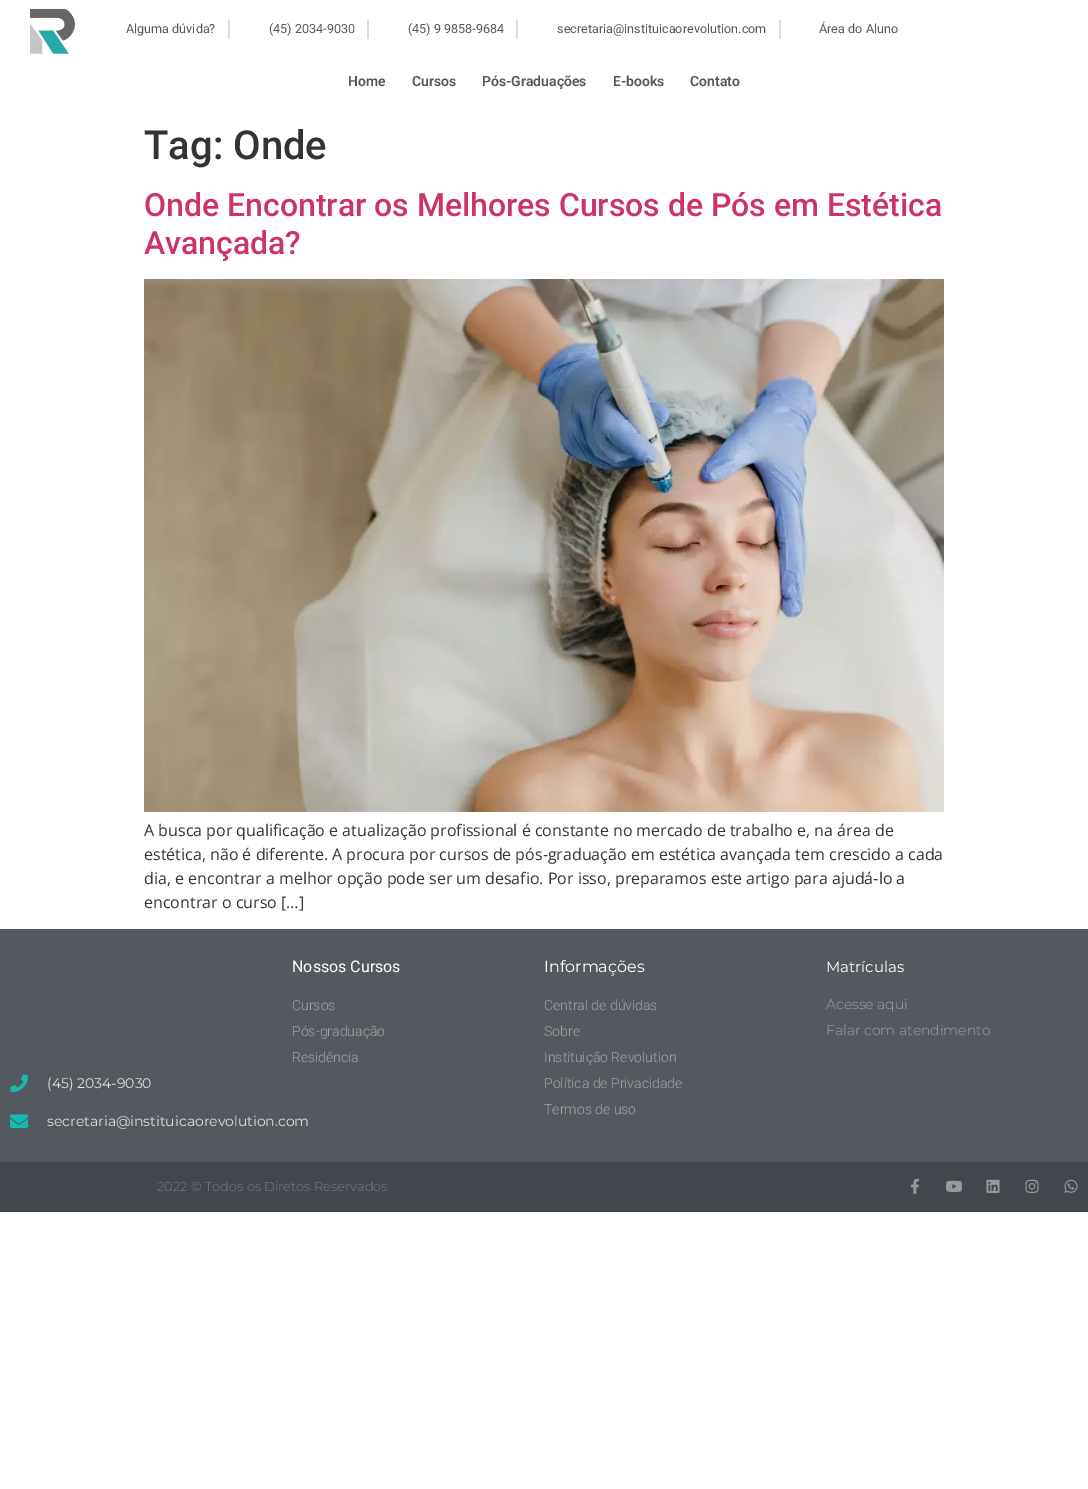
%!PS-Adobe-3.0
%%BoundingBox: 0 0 1088 1489
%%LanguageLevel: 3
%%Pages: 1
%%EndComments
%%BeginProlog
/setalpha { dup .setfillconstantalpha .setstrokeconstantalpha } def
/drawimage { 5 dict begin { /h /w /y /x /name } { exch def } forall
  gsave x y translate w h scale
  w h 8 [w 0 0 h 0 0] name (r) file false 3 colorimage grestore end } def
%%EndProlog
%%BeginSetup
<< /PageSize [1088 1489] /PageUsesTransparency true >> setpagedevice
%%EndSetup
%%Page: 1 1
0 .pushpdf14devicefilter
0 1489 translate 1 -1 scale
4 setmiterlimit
1 setgray
0 0 1088 1489 rectfill
(images/1.raw) 30 9 45 45 drawimage
0.867 setgray
228 20 2 19 rectfill
367 20 2 19 rectfill
516 20 2 19 rectfill
779 20 2 19 rectfill
0.28 setalpha
1 setgray
30 53 39 1 rectfill
1 setalpha
(images/2.raw) 144 279 800 533 drawimage
0.329 0.349 0.373 setrgbcolor
0 929 1088 233 rectfill
(images/3.raw) 10 1074 18 19 drawimage
(images/4.raw) 10 1114 18 14 drawimage
0.263 0.275 0.298 setrgbcolor
0 1162 1088 50 rectfill
(images/5.raw) 911 1178 8 16 drawimage
(images/6.raw) 946 1180 16 12 drawimage
(images/7.raw) 986 1179 14 14 drawimage
(images/8.raw) 1025 1179 14 14 drawimage
(images/9.raw) 1064 1179 14 14 drawimage
/Roboto-Regular [12.6 0 0 -12.6 0 0] selectfont
0.329 0.337 0.345 setrgbcolor
126 33 moveto (Alguma dúvida?) show
269 33 moveto (\(45\) 2034-9030) show
408 33 moveto (\(45\) 9 9858-9684) show
557 33 moveto (secretaria@instituicaorevolution.com) show
819 33 moveto (Área do Aluno) show
/Roboto-SemiBold [14 0 0 -14 0 0] selectfont
348 86 moveto (Home) show
412 86 moveto (Cursos) show
482 86 moveto (Pós-Graduações) show
613 86 moveto (E-books) show
690 86 moveto (Contato) show
/Roboto-Medium [40 0 0 -40 0 0] selectfont
0.2 setgray
144 159 moveto (Tag: Onde) show
/Roboto-Medium [32 0 0 -32 0 0] selectfont
0.8 0.2 0.4 setrgbcolor
144 216 moveto (Onde Encontrar os Melhores Cursos de Pós em Estética) show
144 254 moveto (Avançada?) show
/OpenSans-Regular [16 0 0 -16 0 0] selectfont
0.2 setgray
144 836 moveto (A busca por qualificação e atualização profissional é constante no mercado de trabalho e, na área de) show
144 860 moveto (estética, não é diferente. A procura por cursos de pós-graduação em estética avançada tem crescido a cada) show
144 884 moveto (dia, e encontrar a melhor opção pode ser um desafio. Por isso, preparamos este artigo para ajudá-lo a) show
144 908 moveto (encontrar o curso […]) show
/Roboto-Regular [16 0 0 -16 0 0] selectfont
1 setgray
292 972 moveto (Nossos Cursos) show
/Roboto-Light [14 0 0 -14 0 0] selectfont
0.631 0.643 0.655 setrgbcolor
292 1010 moveto (Cursos) show
292 1036 moveto (Pós-graduação) show
292 1062 moveto (Residência) show
/Montserrat-Regular [16 0 0 -16 0 0] selectfont
1 setgray
544 972 moveto (Informações) show
/Roboto-Light [14 0 0 -14 0 0] selectfont
0.631 0.643 0.655 setrgbcolor
544 1010 moveto (Central de dúvidas) show
544 1036 moveto (Sobre) show
544 1062 moveto (Instituição Revolution) show
544 1088 moveto (Política de Privacidade) show
544 1114 moveto (Termos de uso) show
/Montserrat-Regular [15 0 0 -15 0 0] selectfont
1 setgray
826 972 moveto (Matrículas) show
/Montserrat-Light [14 0 0 -14 0 0] selectfont
0.631 0.643 0.655 setrgbcolor
826 1009 moveto (Acesse aqui) show
826 1035 moveto (Falar com atendimento) show
/Montserrat-Regular [14 0 0 -14 0 0] selectfont
0.867 0.871 0.875 setrgbcolor
47 1088 moveto (\(45\) 2034-9030) show
47 1126 moveto (secretaria@instituicaorevolution.com) show
/Montserrat-Light [13 0 0 -13 0 0] selectfont
0.498 0.506 0.522 setrgbcolor
157 1191 moveto (2022 © Todos os Diretos Reservados) show
.poppdf14devicefilter showpage
%%EOF
